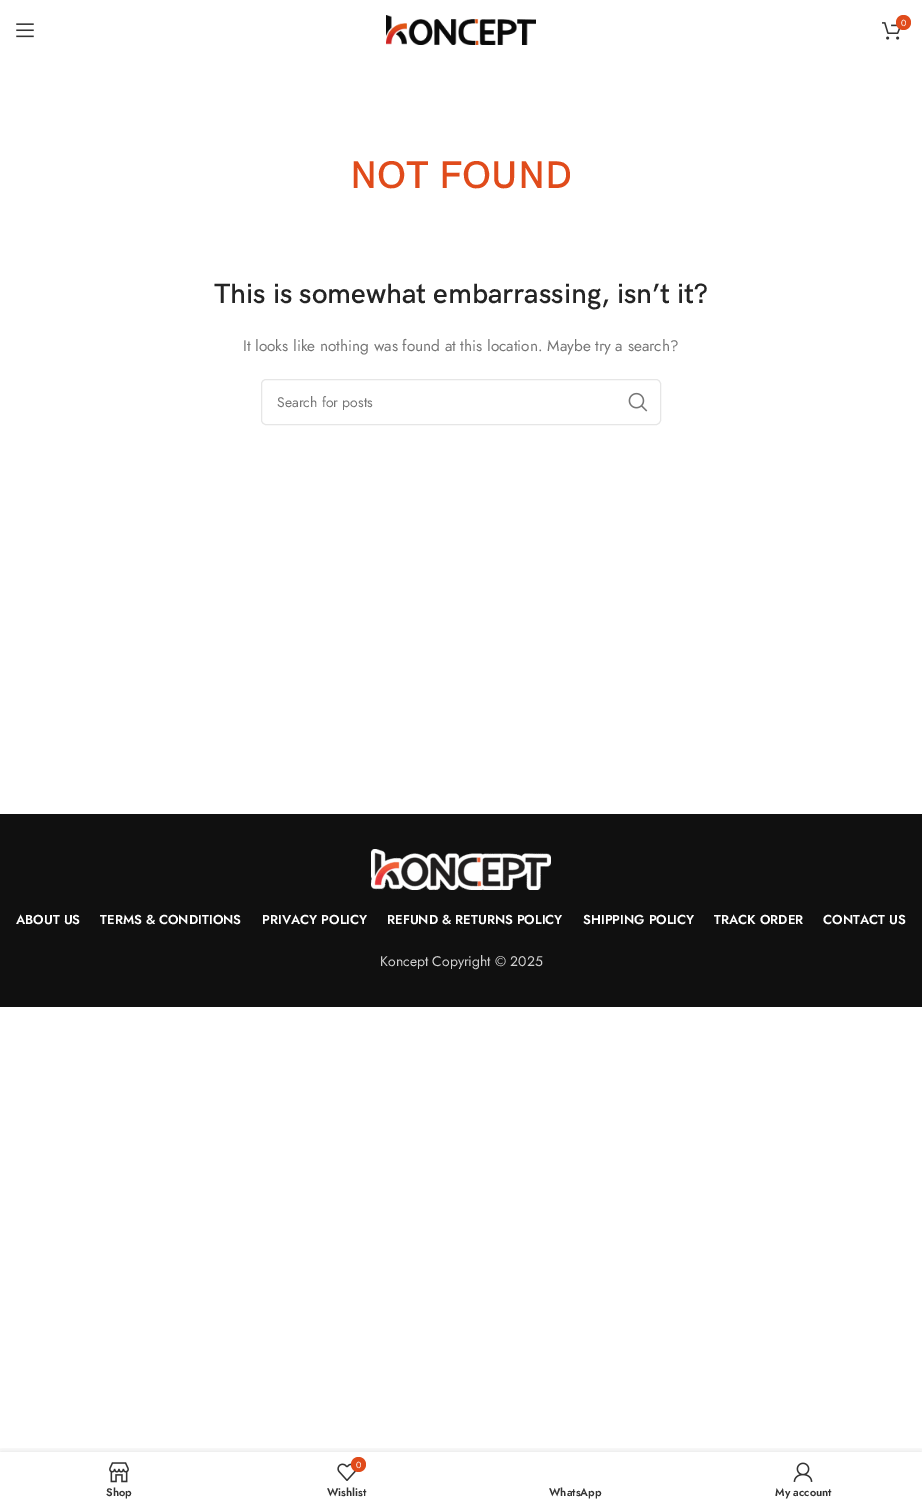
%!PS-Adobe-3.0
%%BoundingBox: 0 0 922 1507
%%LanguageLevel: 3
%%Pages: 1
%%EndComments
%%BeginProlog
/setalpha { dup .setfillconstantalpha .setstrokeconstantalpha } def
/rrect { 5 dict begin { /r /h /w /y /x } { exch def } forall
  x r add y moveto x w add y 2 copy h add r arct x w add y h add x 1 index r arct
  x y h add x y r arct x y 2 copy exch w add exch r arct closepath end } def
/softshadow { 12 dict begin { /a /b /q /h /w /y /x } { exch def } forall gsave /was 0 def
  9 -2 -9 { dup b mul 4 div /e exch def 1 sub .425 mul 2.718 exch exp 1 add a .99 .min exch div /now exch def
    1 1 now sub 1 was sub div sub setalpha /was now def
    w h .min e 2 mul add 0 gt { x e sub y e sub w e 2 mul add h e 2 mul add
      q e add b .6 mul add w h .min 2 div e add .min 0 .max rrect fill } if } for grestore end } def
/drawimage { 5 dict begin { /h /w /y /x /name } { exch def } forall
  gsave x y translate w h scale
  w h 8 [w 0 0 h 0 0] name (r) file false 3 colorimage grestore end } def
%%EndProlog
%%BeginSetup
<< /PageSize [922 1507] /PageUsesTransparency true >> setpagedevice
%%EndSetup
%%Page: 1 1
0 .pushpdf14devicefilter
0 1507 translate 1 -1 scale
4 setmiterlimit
1 setgray
0 0 922 1507 rectfill
(images/1.raw) 16 23 18 15 drawimage
(images/2.raw) 386 15 150 30 drawimage
(images/3.raw) 882 22 19 18 drawimage
0.878 0.294 0.106 setrgbcolor
newpath 903.5 22.5 7.5 0 360 arc closepath fill
0.902 setgray
261.5 379.5 399 45 4.5 rrect stroke
(images/4.raw) 628 392 20 20 drawimage
0.063 setgray
0 814 922 193 rectfill
(images/5.raw) 371 849 180 41 drawimage
gsave
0 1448 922 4 rectclip
0 setgray
0 1452 922 55 0 4.5 0.12 softshadow
grestore
(images/6.raw) 109 1462 20 21 drawimage
(images/7.raw) 337 1463 20 18 drawimage
0.878 0.294 0.106 setrgbcolor
newpath 358.5 1464.5 7.5 0 360 arc closepath fill
(images/8.raw) 793 1462 20 20 drawimage
/Jost-Regular [9 0 0 -9 0 0] selectfont
1 setgray
901 26 moveto (0) show
/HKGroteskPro-SemiBold [38.75 0 0 -38.75 0 0] selectfont
0.878 0.294 0.106 setrgbcolor
350 188 moveto (NOT FOUND) show
/HKGroteskPro-SemiBold [28 0 0 -28 0 0] selectfont
0.141 setgray
214 303 moveto (This is somewhat embarrassing, isn’t it?) show
/Jost-Regular [15.4 0 0 -15.4 0 0] selectfont
0.463 setgray
243 351 moveto (It looks like nothing was found at this location. Maybe try a search?) show
/Jost-Regular [14 0 0 -14 0 0] selectfont
277 407 moveto (Search for posts) show
/Jost-SemiBold [13 0 0 -13 0 0] selectfont
1 setgray
16 924 moveto (ABOUT US) show
100 924 moveto (TERMS & CONDITIONS) show
262 924 moveto (PRIVACY POLICY) show
387 924 moveto (REFUND & RETURNS POLICY) show
583 924 moveto (SHIPPING POLICY) show
714 924 moveto (TRACK ORDER) show
823 924 moveto (CONTACT US) show
/Jost-Regular [14 0 0 -14 0 0] selectfont
0.812 setgray
380 966 moveto (Koncept Copyright © 2025) show
/Jost-SemiBold [11 0 0 -11 0 0] selectfont
0.2 setgray
106 1496 moveto (Shop) show
/Jost-Regular [9 0 0 -9 0 0] selectfont
1 setgray
356 1468 moveto (0) show
/Jost-SemiBold [11 0 0 -11 0 0] selectfont
0.2 setgray
327 1496 moveto (Wishlist) show
549 1496 moveto (WhatsApp) show
775 1496 moveto (My account) show
.poppdf14devicefilter showpage
%%EOF
